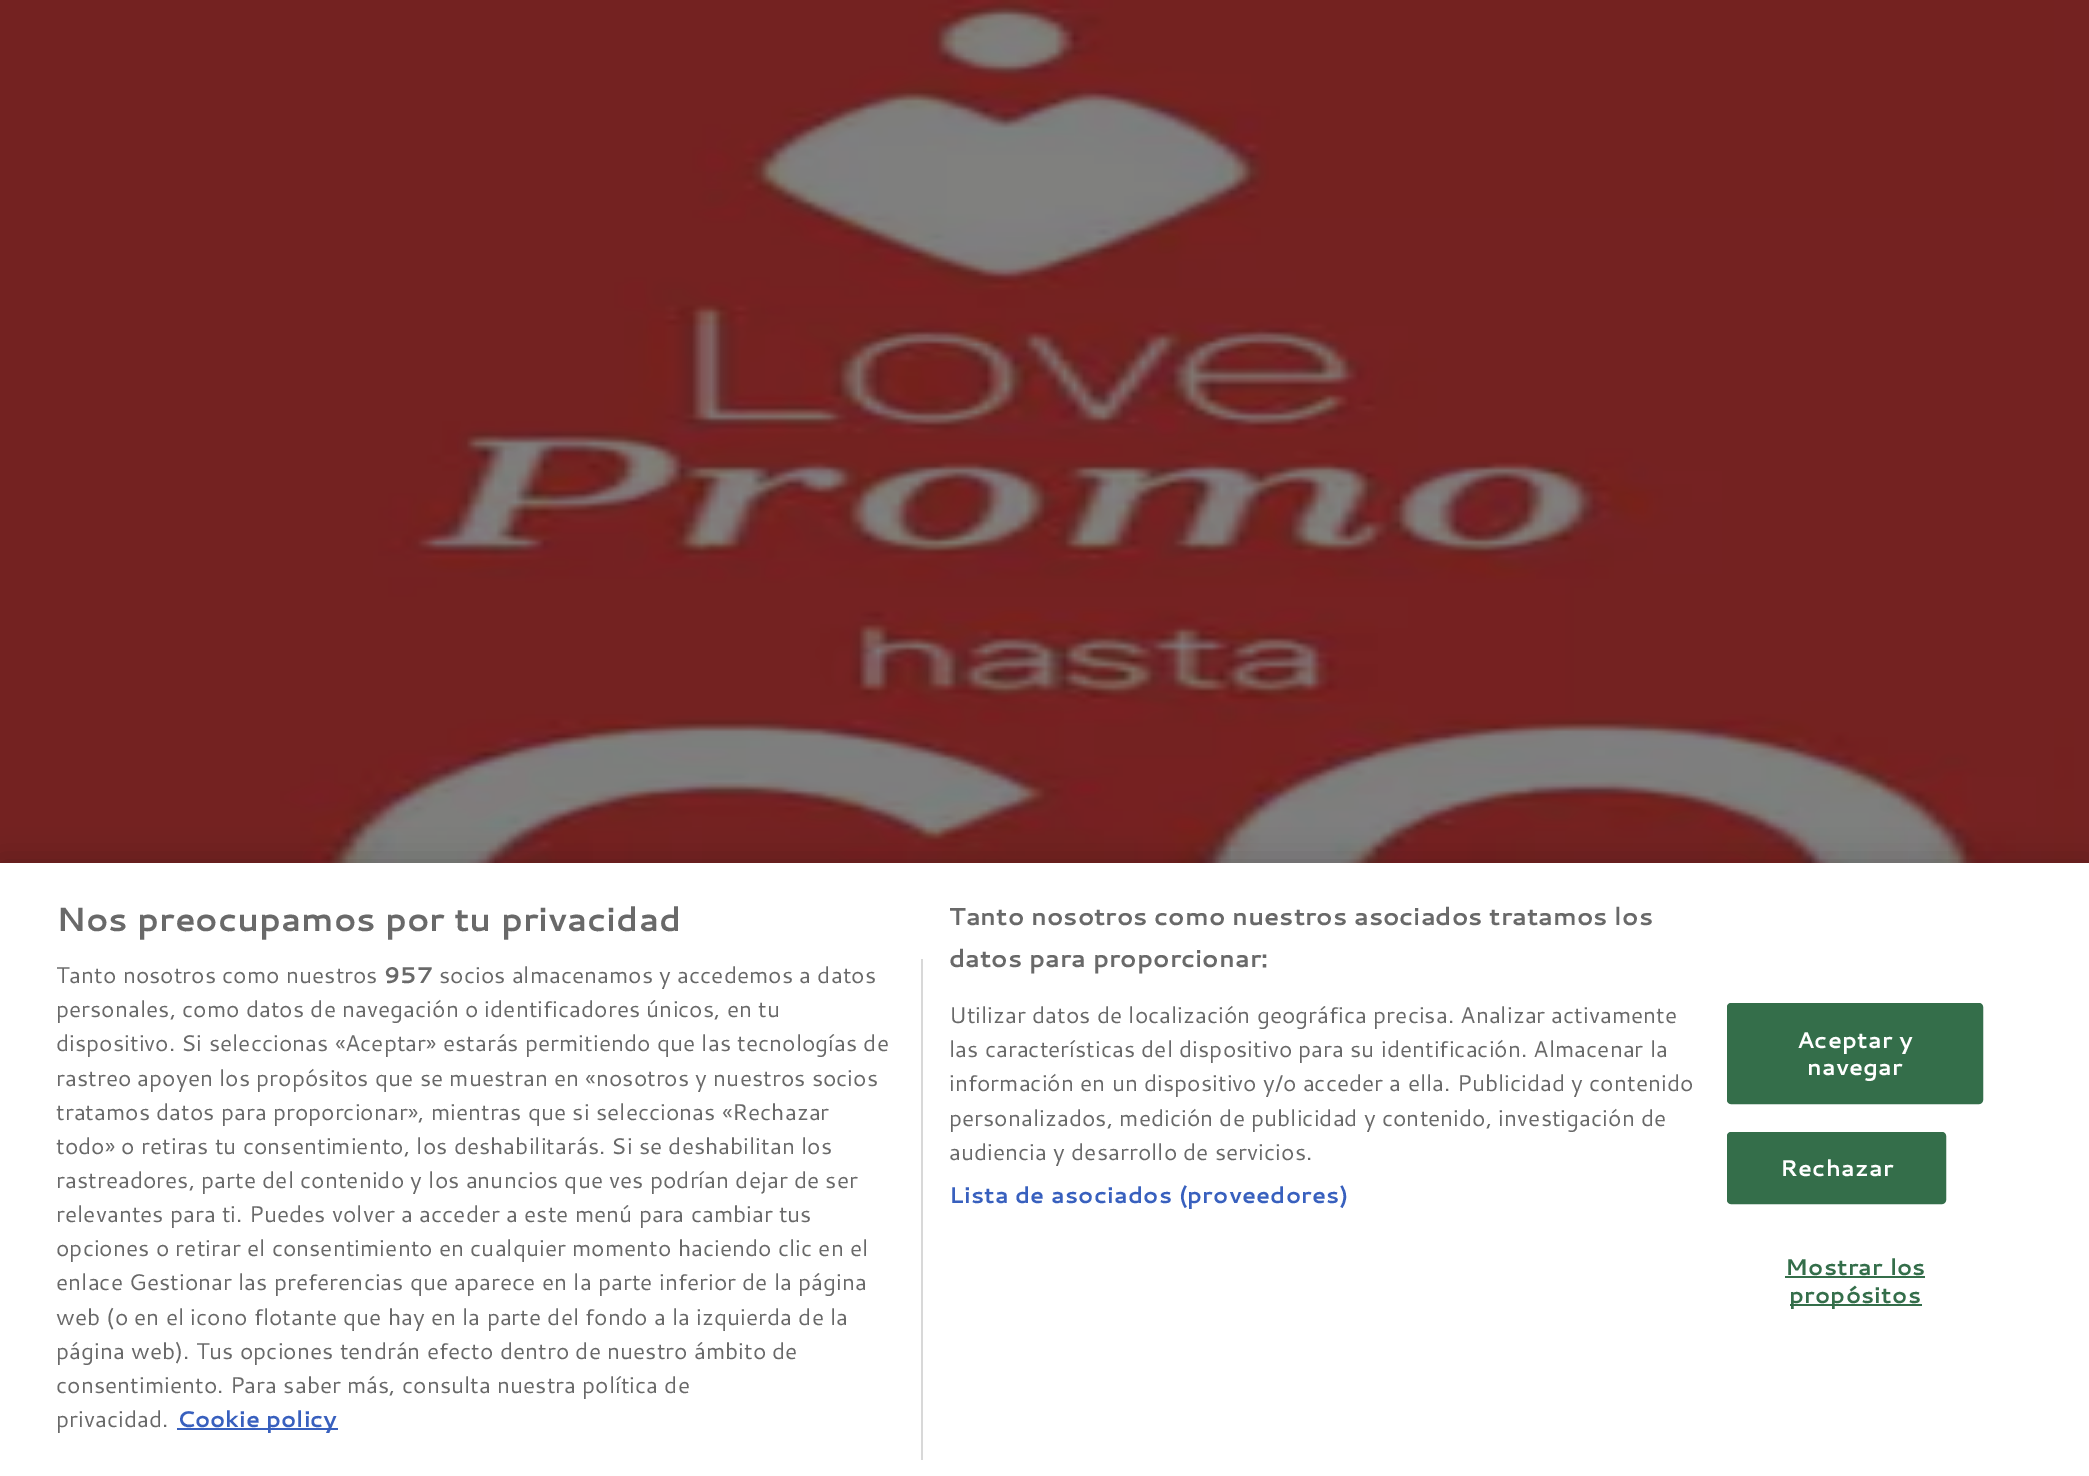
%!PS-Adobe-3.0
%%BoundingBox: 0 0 2089 1476
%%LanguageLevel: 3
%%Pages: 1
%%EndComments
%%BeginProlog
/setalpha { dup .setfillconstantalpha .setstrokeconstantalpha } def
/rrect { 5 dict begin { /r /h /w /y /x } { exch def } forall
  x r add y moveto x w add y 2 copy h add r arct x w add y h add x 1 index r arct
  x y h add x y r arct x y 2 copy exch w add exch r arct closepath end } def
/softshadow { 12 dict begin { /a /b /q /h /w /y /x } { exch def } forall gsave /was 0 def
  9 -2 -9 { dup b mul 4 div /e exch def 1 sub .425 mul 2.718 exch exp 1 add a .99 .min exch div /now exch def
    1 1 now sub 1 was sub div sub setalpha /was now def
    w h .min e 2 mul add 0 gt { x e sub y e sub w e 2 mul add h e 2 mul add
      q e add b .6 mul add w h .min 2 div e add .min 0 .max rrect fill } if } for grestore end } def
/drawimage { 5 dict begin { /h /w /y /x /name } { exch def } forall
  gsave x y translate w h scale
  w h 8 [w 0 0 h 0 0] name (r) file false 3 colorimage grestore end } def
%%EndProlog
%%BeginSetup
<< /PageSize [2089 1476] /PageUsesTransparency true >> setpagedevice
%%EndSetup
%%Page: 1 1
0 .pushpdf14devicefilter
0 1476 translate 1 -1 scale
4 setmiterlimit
1 setgray
0 0 2089 1476 rectfill
(images/1.raw) 0 0 2054 863 drawimage
(images/2.raw) 2054 0 35 863 drawimage
0 setgray
0 863 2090 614 0 16 0.2 softshadow
1 setgray
0 863 2089 613 rectfill
0.847 setgray
921 959 2 501 rectfill
0.22 0.376 0.745 setrgbcolor
177 1428 161 2 rectfill
0.204 0.431 0.29 setrgbcolor
1728 1004 254 99 3 rrect gsave fill grestore
2 setlinewidth
stroke
1728 1133 217 70 3 rrect gsave fill grestore
stroke
1785 1276 140 2 rectfill
1790 1304 132 2 rectfill
/Cantarell-Bold [33.6 0 0 -33.6 0 0] selectfont
0.412 setgray
56 931 moveto (Nos preocupamos por tu privacidad) show
/Cantarell-Bold [24.65 0 0 -24.65 0 0] selectfont
949 925 moveto (Tanto nosotros como nuestros asociados tratamos los) show
949 967 moveto (datos para proporcionar:) show
/Cantarell-Regular [22.75 0 0 -22.75 0 0] selectfont
949 1023 moveto (Utilizar datos de localización geográfica precisa. Analizar activamente) show
949 1057 moveto (las características del dispositivo para su identificación. Almacenar la) show
949 1091 moveto (información en un dispositivo y/o acceder a ella. Publicidad y contenido) show
949 1126 moveto (personalizados, medición de publicidad y contenido, investigación de) show
949 1160 moveto (audiencia y desarrollo de servicios.) show
/Cantarell-Bold [22.75 0 0 -22.75 0 0] selectfont
0.22 0.376 0.745 setrgbcolor
949 1203 moveto 0.25 0 (Lista de asociados \(proveedores\)) ashow
/Cantarell-Regular [22.75 0 0 -22.75 0 0] selectfont
0.412 setgray
56 983 moveto (Tanto nosotros como nuestros) show
/Cantarell-Bold [22.75 0 0 -22.75 0 0] selectfont
384 983 moveto (957) show
/Cantarell-Regular [22.75 0 0 -22.75 0 0] selectfont
439 983 moveto (socios almacenamos y accedemos a datos) show
56 1017 moveto (personales, como datos de navegación o identificadores únicos, en tu) show
56 1051 moveto (dispositivo. Si seleccionas «Aceptar» estarás permitiendo que las tecnologías de) show
56 1086 moveto (rastreo apoyen los propósitos que se muestran en «nosotros y nuestros socios) show
56 1120 moveto (tratamos datos para proporcionar», mientras que si seleccionas «Rechazar) show
56 1154 moveto (todo» o retiras tu consentimiento, los deshabilitarás. Si se deshabilitan los) show
56 1188 moveto (rastreadores, parte del contenido y los anuncios que ves podrían dejar de ser) show
56 1222 moveto (relevantes para ti. Puedes volver a acceder a este menú para cambiar tus) show
56 1256 moveto (opciones o retirar el consentimiento en cualquier momento haciendo clic en el) show
56 1290 moveto (enlace Gestionar las preferencias que aparece en la parte inferior de la página) show
56 1325 moveto (web \(o en el icono flotante que hay en la parte del fondo a la izquierda de la) show
56 1359 moveto (página web\). Tus opciones tendrán efecto dentro de nuestro ámbito de) show
56 1393 moveto (consentimiento. Para saber más, consulta nuestra política de) show
56 1427 moveto (privacidad.) show
/Cantarell-Bold [22.75 0 0 -22.75 0 0] selectfont
0.22 0.376 0.745 setrgbcolor
177 1427 moveto (Cookie policy) show
1 setgray
1797 1048 moveto 0.25 0 (Aceptar y) ashow
1807 1075 moveto 0.25 0 (navegar) ashow
1780 1176 moveto 0.25 0 (Rechazar) ashow
0.204 0.431 0.29 setrgbcolor
1785 1275 moveto 0.25 0 (Mostrar los) ashow
1789 1303 moveto 0.25 0 (propósitos) ashow
.poppdf14devicefilter showpage
%%EOF
